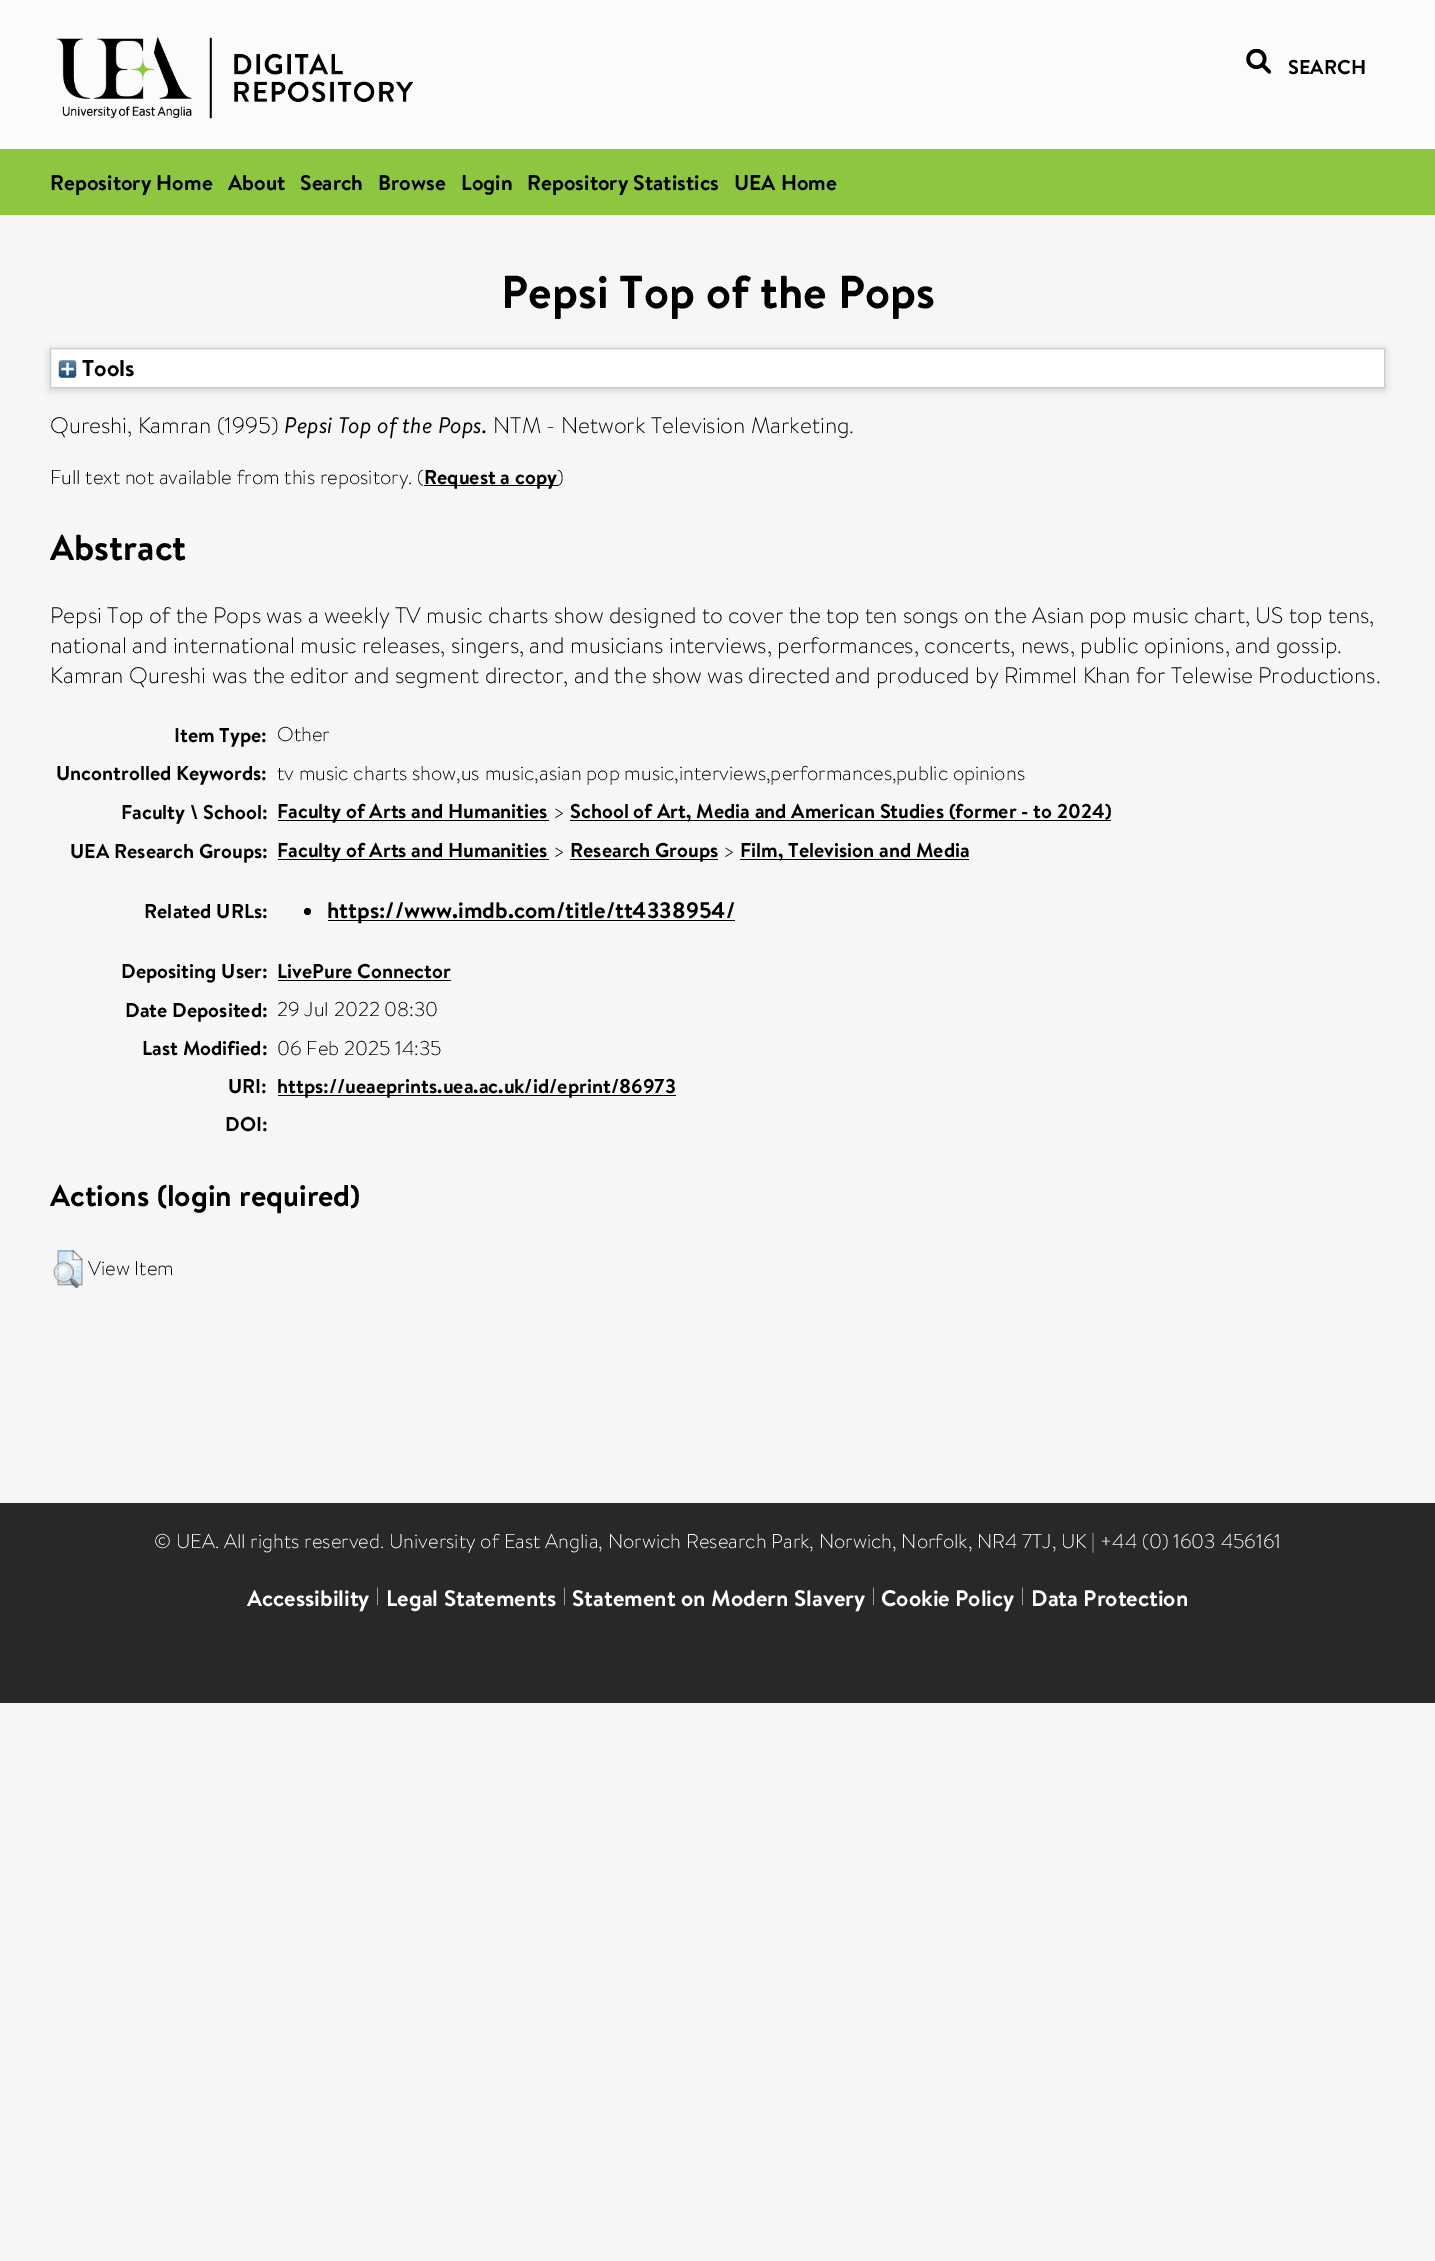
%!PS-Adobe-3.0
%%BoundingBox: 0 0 1435 2261
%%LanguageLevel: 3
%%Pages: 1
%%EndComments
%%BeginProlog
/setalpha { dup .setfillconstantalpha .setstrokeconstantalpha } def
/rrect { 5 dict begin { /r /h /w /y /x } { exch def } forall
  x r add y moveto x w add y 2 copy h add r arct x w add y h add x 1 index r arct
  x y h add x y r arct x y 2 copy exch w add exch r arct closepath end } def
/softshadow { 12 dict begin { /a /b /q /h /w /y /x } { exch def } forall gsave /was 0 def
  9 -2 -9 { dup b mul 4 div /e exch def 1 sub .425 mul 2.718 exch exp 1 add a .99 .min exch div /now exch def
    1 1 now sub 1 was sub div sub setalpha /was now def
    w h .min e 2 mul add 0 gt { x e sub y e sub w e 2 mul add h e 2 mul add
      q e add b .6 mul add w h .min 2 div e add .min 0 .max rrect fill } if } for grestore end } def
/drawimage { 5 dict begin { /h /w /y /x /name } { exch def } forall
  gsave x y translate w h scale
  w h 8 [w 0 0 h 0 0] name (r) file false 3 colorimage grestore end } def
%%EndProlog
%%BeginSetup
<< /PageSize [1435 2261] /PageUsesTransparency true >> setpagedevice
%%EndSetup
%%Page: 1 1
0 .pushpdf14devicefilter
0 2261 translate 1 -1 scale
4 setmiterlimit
0.965 setgray
0 0 1435 2261 rectfill
0.984 setgray
0 0 1435 149 rectfill
(images/1.raw) 56 37 357 82 drawimage
(images/2.raw) 1246 49 25 25 drawimage
0.553 0.776 0.247 setrgbcolor
0 149 1435 66 rectfill
0.392 setgray
50 350 1335 40 0 4 0.3 softshadow
1 setgray
newpath 50.5 348.5 moveto 1384.5 348.5 lineto 1384.5 387.5 lineto 50.5 387.5 lineto closepath gsave fill grestore
0.8 setgray
stroke
(images/3.raw) 58 360 19 18 drawimage
0 setgray
424 485 134 1 rectfill
278 820 271 1 rectfill
570 820 541 1 rectfill
278 859 271 1 rectfill
570 859 148 1 rectfill
740 859 229 1 rectfill
newpath 307.5 911.5 3.5 0 360 arc closepath fill
328 920 407 1 rectfill
278 980 173 1 rectfill
278 1095 398 1 rectfill
(images/4.raw) 53 1250 30 38 drawimage
0.157 setgray
0 1503 1435 200 rectfill
/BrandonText-Bold [20 0 0 -20 0 0] selectfont
0 setgray
1288 74 moveto (SEARCH) show
/BrandonText-Bold [21.25 0 0 -21.25 0 0] selectfont
50 190 moveto (Repository Home) show
228 190 moveto (About) show
300 190 moveto (Search) show
378 190 moveto (Browse) show
461 190 moveto (Login) show
527 190 moveto (Repository Statistics) show
734 190 moveto (UEA Home) show
/BrandonText-Bold [46 0 0 -46 0 0] selectfont
501 308 moveto (Pepsi Top of the Pops) show
/BrandonText-Bold [23 0 0 -23 0 0] selectfont
82 376 moveto (Tools) show
/BrandonText-Light [22.5 0 0 -22.5 0 0] selectfont
50 433 moveto (Qureshi, Kamran \(1995\)) show
/BrandonText-Italic [22.5 0 0 -22.5 0 0] selectfont
284 433 moveto (Pepsi Top of the Pops.) show
/BrandonText-Light [22.5 0 0 -22.5 0 0] selectfont
493 433 moveto (NTM - Network Television Marketing.) show
/BrandonText-Light [20 0 0 -20 0 0] selectfont
50 484 moveto (Full text not available from this repository. \() show
/BrandonText-Bold [20 0 0 -20 0 0] selectfont
424 484 moveto (Request a copy) show
/BrandonText-Light [20 0 0 -20 0 0] selectfont
557 484 moveto (\)) show
/BrandonText-Bold [36 0 0 -36 0 0] selectfont
50 560 moveto (Abstract) show
/BrandonText-Light [22.5 0 0 -22.5 0 0] selectfont
50 623 moveto (Pepsi Top of the Pops was a weekly TV music charts show designed to cover the top ten songs on the Asian pop music chart, US top tens,) show
50 653 moveto (national and international music releases, singers, and musicians interviews, performances, concerts, news, public opinions, and gossip.) show
50 683 moveto (Kamran Qureshi was the editor and segment director, and the show was directed and produced by Rimmel Khan for Telewise Productions.) show
/BrandonText-Bold [20 0 0 -20 0 0] selectfont
174 742 moveto (Item Type:) show
/BrandonText-Light [20 0 0 -20 0 0] selectfont
277 741 moveto (Other) show
/BrandonText-Bold [20 0 0 -20 0 0] selectfont
56 780 moveto (Uncontrolled Keywords:) show
/BrandonText-Light [20 0 0 -20 0 0] selectfont
277 780 moveto (tv music charts show,us music,asian pop music,interviews,performances,public opinions) show
/BrandonText-Bold [20 0 0 -20 0 0] selectfont
121 819 moveto (Faculty \\ School:) show
277 818 moveto (Faculty of Arts and Humanities) show
/BrandonText-Light [20 0 0 -20 0 0] selectfont
553 818 moveto (>) show
/BrandonText-Bold [20 0 0 -20 0 0] selectfont
570 818 moveto (School of Art, Media and American Studies \(former - to 2024\)) show
70 858 moveto (UEA Research Groups:) show
277 857 moveto (Faculty of Arts and Humanities) show
/BrandonText-Light [20 0 0 -20 0 0] selectfont
553 857 moveto (>) show
/BrandonText-Bold [20 0 0 -20 0 0] selectfont
570 857 moveto (Research Groups) show
/BrandonText-Light [20 0 0 -20 0 0] selectfont
723 857 moveto (>) show
/BrandonText-Bold [20 0 0 -20 0 0] selectfont
740 857 moveto (Film, Television and Media) show
144 918 moveto (Related URLs:) show
/BrandonText-Bold [22.5 0 0 -22.5 0 0] selectfont
327 918 moveto (https://www.imdb.com/title/tt4338954/) show
/BrandonText-Bold [20 0 0 -20 0 0] selectfont
121 978 moveto (Depositing User:) show
277 978 moveto (LivePure Connector) show
125 1017 moveto (Date Deposited:) show
/BrandonText-Light [20 0 0 -20 0 0] selectfont
277 1016 moveto (29 Jul 2022 08:30) show
/BrandonText-Bold [20 0 0 -20 0 0] selectfont
142 1055 moveto (Last Modified:) show
/BrandonText-Light [20 0 0 -20 0 0] selectfont
277 1055 moveto (06 Feb 2025 14:35) show
/BrandonText-Bold [20 0 0 -20 0 0] selectfont
228 1093 moveto (URI:) show
277 1093 moveto (https://ueaeprints.uea.ac.uk/id/eprint/86973) show
225 1131 moveto (DOI:) show
/BrandonText-Bold [30 0 0 -30 0 0] selectfont
50 1206 moveto (Actions \(login required\)) show
/BrandonText-Light [20 0 0 -20 0 0] selectfont
88 1275 moveto (View Item) show
1 setgray
154 1548 moveto (© UEA. All rights reserved. University of East Anglia, Norwich Research Park, Norwich, Norfolk, NR4 7TJ, UK | +44 \(0\) 1603 456161) show
/BrandonText-Bold [22.5 0 0 -22.5 0 0] selectfont
247 1606 moveto (Accessibility) show
/BrandonText-Light [18 0 0 -18 0 0] selectfont
376 1601 moveto (|) show
/BrandonText-Bold [22.5 0 0 -22.5 0 0] selectfont
386 1606 moveto (Legal Statements) show
/BrandonText-Light [18 0 0 -18 0 0] selectfont
563 1601 moveto (|) show
/BrandonText-Bold [22.5 0 0 -22.5 0 0] selectfont
572 1606 moveto (Statement on Modern Slavery) show
/BrandonText-Light [18 0 0 -18 0 0] selectfont
872 1601 moveto (|) show
/BrandonText-Bold [22.5 0 0 -22.5 0 0] selectfont
881 1606 moveto (Cookie Policy) show
/BrandonText-Light [18 0 0 -18 0 0] selectfont
1021 1601 moveto (|) show
/BrandonText-Bold [22.5 0 0 -22.5 0 0] selectfont
1031 1606 moveto (Data Protection) show
.poppdf14devicefilter showpage
%%EOF
